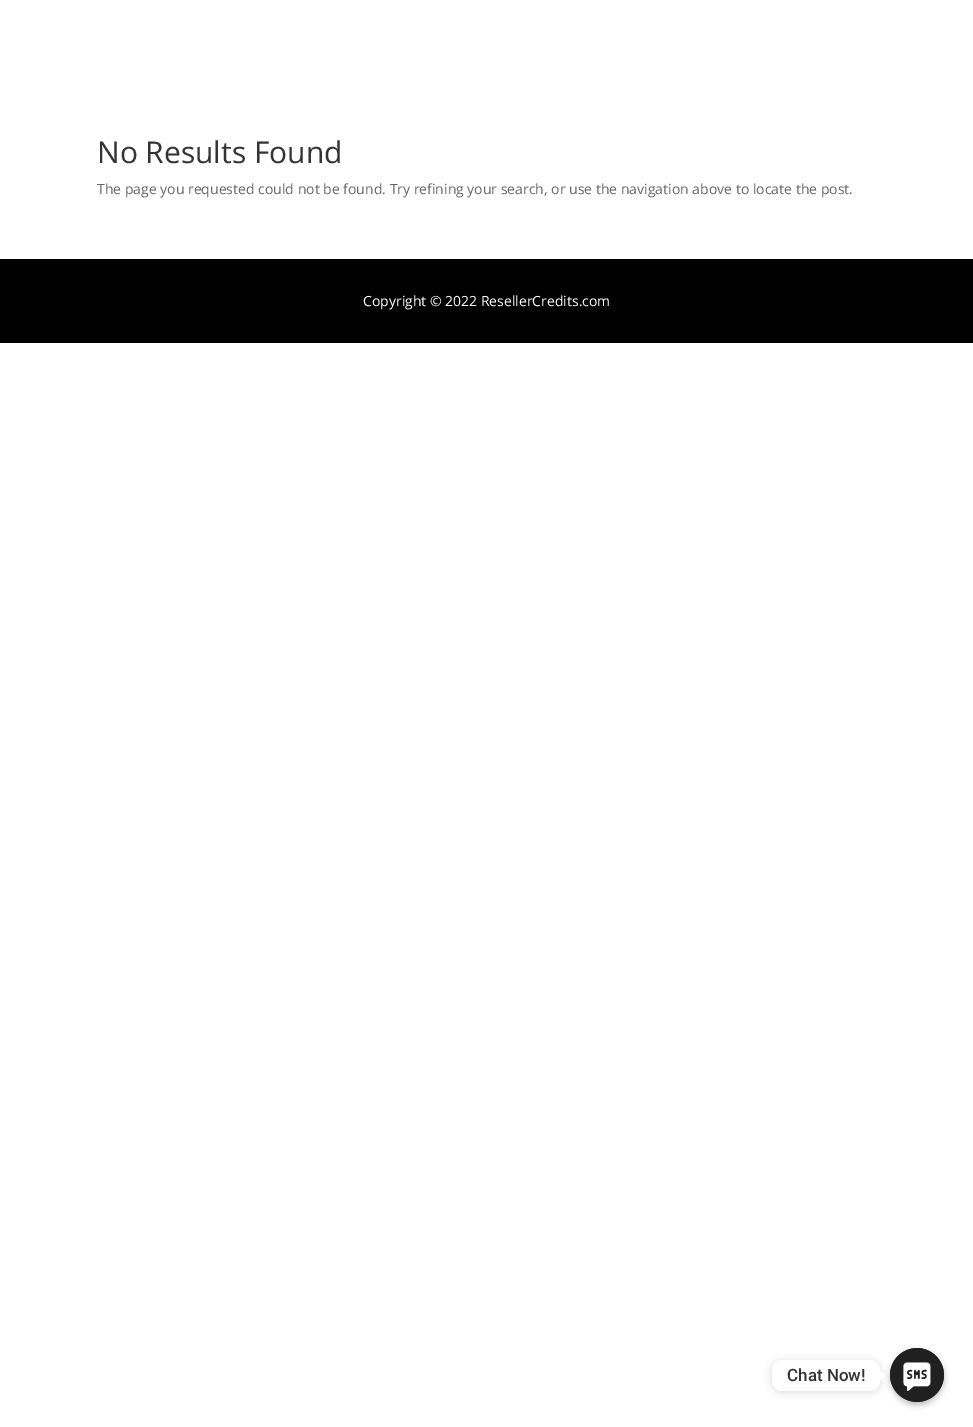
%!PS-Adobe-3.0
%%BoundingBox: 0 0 973 1427
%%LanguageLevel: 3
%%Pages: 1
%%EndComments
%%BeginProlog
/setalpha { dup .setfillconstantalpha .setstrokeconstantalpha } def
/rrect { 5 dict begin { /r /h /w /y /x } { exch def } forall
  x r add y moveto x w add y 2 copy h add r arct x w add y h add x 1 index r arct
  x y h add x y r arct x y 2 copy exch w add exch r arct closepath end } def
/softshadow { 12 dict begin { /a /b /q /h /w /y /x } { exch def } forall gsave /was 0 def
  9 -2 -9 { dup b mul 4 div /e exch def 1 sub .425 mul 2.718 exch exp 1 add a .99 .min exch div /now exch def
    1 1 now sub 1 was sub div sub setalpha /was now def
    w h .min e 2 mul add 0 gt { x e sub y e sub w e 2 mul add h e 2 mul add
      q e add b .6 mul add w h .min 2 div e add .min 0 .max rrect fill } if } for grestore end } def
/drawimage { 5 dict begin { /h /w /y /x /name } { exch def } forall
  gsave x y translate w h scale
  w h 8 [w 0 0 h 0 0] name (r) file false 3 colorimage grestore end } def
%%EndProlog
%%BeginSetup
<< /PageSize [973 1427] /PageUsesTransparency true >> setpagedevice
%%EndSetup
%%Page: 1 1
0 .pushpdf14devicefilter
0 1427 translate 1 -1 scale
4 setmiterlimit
1 setgray
0 0 973 1427 rectfill
0 setgray
0 259 973 84 rectfill
890 1351 54 54 27 3 0.25 softshadow
(images/1.raw) 890 1348 54 54 drawimage
772 1361 108 31 10 4 0.15 softshadow
1 setgray
772 1360 108 31 10 rrect fill
newpath 880 1380.5 moveto 880 1370.5 lineto 885 1375.5 lineto closepath fill
/OpenSans-Regular [30 0 0 -30 0 0] selectfont
0.2 setgray
97 163 moveto (No Results Found) show
/OpenSans-Regular [14 0 0 -14 0 0] selectfont
0.4 setgray
97 194 moveto (The page you requested could not be found. Try refining your search, or use the navigation above to locate the post.) show
1 setgray
363 306 moveto (Copyright © 2022 ResellerCredits.com) show
/Roboto-Medium [17 0 0 -17 0 0] selectfont
0.2 setgray
787 1381 moveto (Chat Now!) show
.poppdf14devicefilter showpage
%%EOF
